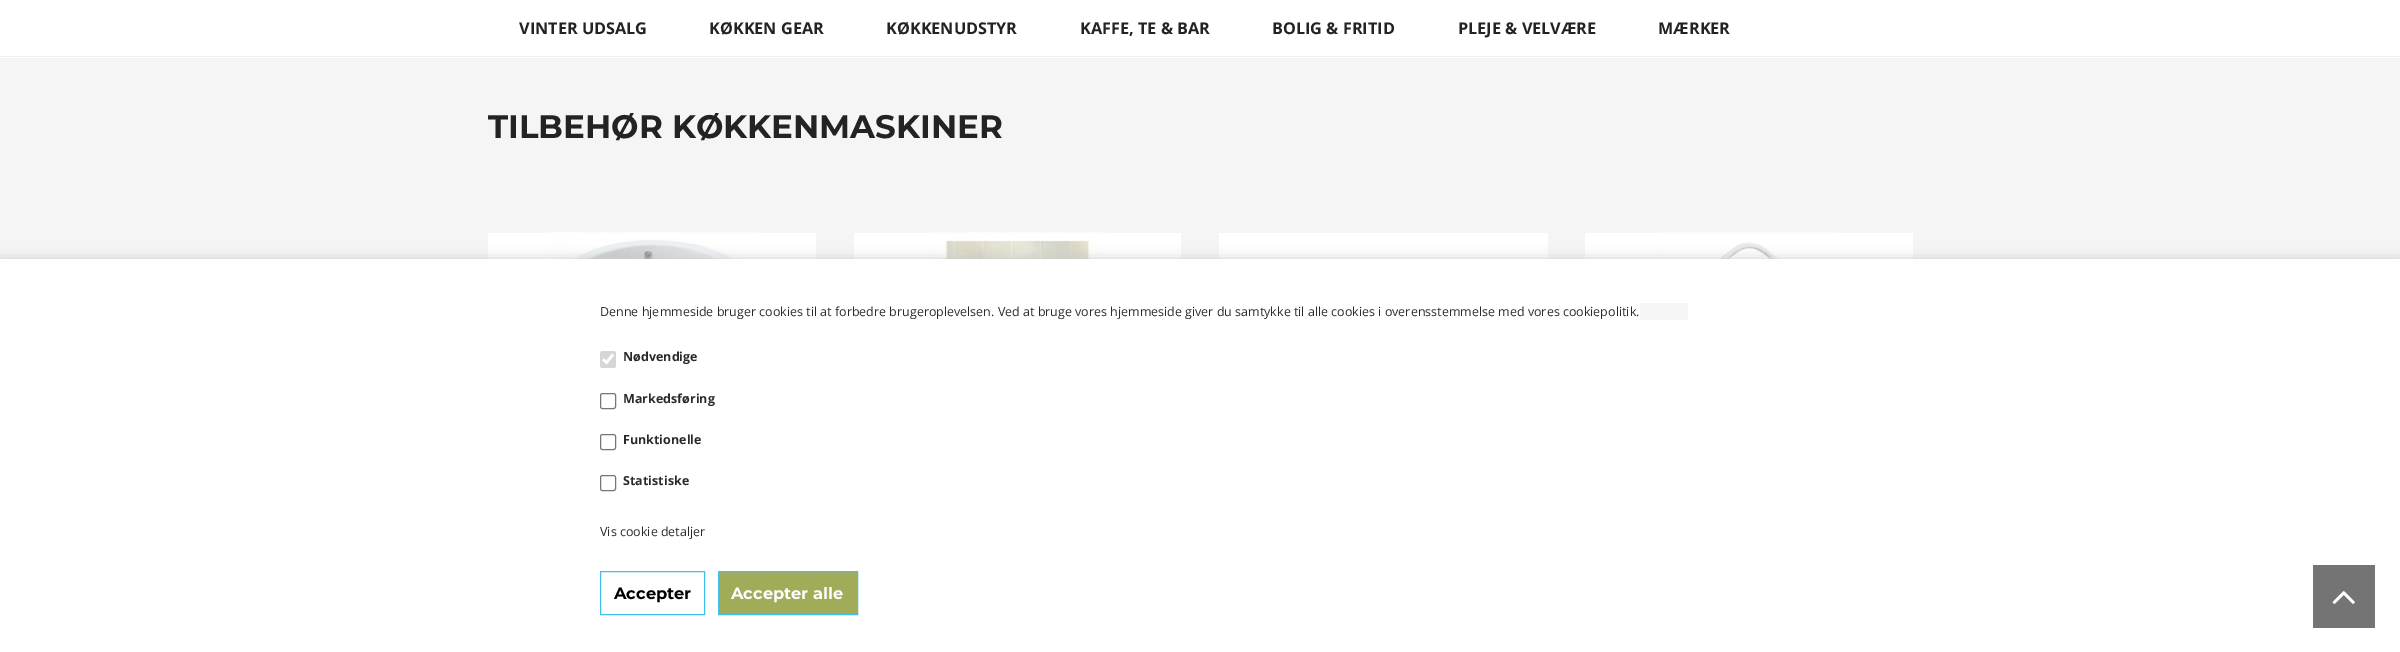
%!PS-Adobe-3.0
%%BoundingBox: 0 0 2400 652
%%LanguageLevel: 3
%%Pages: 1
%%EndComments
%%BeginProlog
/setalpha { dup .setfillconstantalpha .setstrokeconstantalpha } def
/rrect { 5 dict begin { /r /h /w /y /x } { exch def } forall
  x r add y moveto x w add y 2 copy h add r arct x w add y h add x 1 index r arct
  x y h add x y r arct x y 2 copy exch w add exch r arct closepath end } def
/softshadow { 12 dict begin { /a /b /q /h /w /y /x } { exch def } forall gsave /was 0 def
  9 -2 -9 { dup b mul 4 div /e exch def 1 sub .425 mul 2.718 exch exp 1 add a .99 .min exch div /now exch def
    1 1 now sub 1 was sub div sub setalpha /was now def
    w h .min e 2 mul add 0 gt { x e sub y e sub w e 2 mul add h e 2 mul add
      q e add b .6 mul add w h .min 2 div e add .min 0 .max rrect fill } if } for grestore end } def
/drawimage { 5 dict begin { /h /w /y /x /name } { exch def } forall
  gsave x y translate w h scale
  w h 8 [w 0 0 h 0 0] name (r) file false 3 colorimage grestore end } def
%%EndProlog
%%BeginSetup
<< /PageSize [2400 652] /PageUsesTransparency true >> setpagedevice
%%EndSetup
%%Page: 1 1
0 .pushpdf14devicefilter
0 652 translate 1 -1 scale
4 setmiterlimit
0.961 setgray
0 0 2400 652 rectfill
1 setgray
0 0 2400 58 rectfill
0.922 0.941 0.953 setrgbcolor
0 56 2400 1 rectfill
1 setgray
488 233 328 26 rectfill
(images/1.raw) 546 232 211 27 drawimage
854 233 327 26 rectfill
(images/2.raw) 930 232 175 27 drawimage
1219 233 329 26 rectfill
1585 233 328 26 rectfill
(images/3.raw) 1661 232 175 27 drawimage
0.8 setgray
0 259 2400 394 0 6 1 softshadow
1 setgray
0 259 2400 393 rectfill
0.455 setgray
2313 565 62 63 rectfill
(images/4.raw) 2332 591 23 13 drawimage
0.961 setgray
1640 303 48 17 rectfill
0.839 setgray
600 351 16 17 2.5 rrect fill
1 setgray
2.6 setlinewidth
newpath 603 359.5 moveto 606.5 362.5 lineto 613 354.5 lineto stroke
0.463 setgray
1 setlinewidth
600.5 393.5 15 15 2 rrect stroke
600.5 434.5 15 15 2 rrect stroke
600.5 475.5 15 15 2 rrect stroke
0.251 0.753 0.937 setrgbcolor
600.5 571.5 104 43 rectstroke
0.635 0.671 0.345 setrgbcolor
newpath 718.5 571.5 moveto 857.5 571.5 lineto 857.5 614.5 lineto 718.5 614.5 lineto closepath gsave fill grestore
0.251 0.753 0.937 setrgbcolor
stroke
/OpenSans-Bold [16.25 0 0 -16.25 0 0] selectfont
0.137 setgray
519 34 moveto (VINTER UDSALG) show
709 34 moveto (KØKKEN GEAR) show
886 34 moveto (KØKKENUDSTYR) show
1080 34 moveto (KAFFE, TE & BAR) show
1272 34 moveto (BOLIG & FRITID) show
1458 34 moveto (PLEJE & VELVÆRE) show
1658 34 moveto (MÆRKER) show
/Montserrat-Bold [32.5 0 0 -32.5 0 0] selectfont
488 138 moveto (TILBEHØR KØKKENMASKINER) show
/OpenSans-Regular [12.5 0 0 -12.5 0 0] selectfont
0.165 setgray
600 316 moveto (Denne hjemmeside bruger cookies til at forbedre brugeroplevelsen. Ved at bruge vores hjemmeside giver du samtykke til alle cookies i overensstemmelse med vores cookiepolitik.) show
/OpenSans-Bold [12.5 0 0 -12.5 0 0] selectfont
623 361 moveto (Nødvendige) show
623 403 moveto (Markedsføring) show
623 444 moveto (Funktionelle) show
623 485 moveto (Statistiske) show
/OpenSans-Regular [12.5 0 0 -12.5 0 0] selectfont
600 536 moveto (Vis cookie detaljer) show
/Montserrat-Bold [16.25 0 0 -16.25 0 0] selectfont
0 setgray
614 599 moveto (Accepter) show
1 setgray
731 599 moveto (Accepter alle) show
.poppdf14devicefilter showpage
%%EOF
